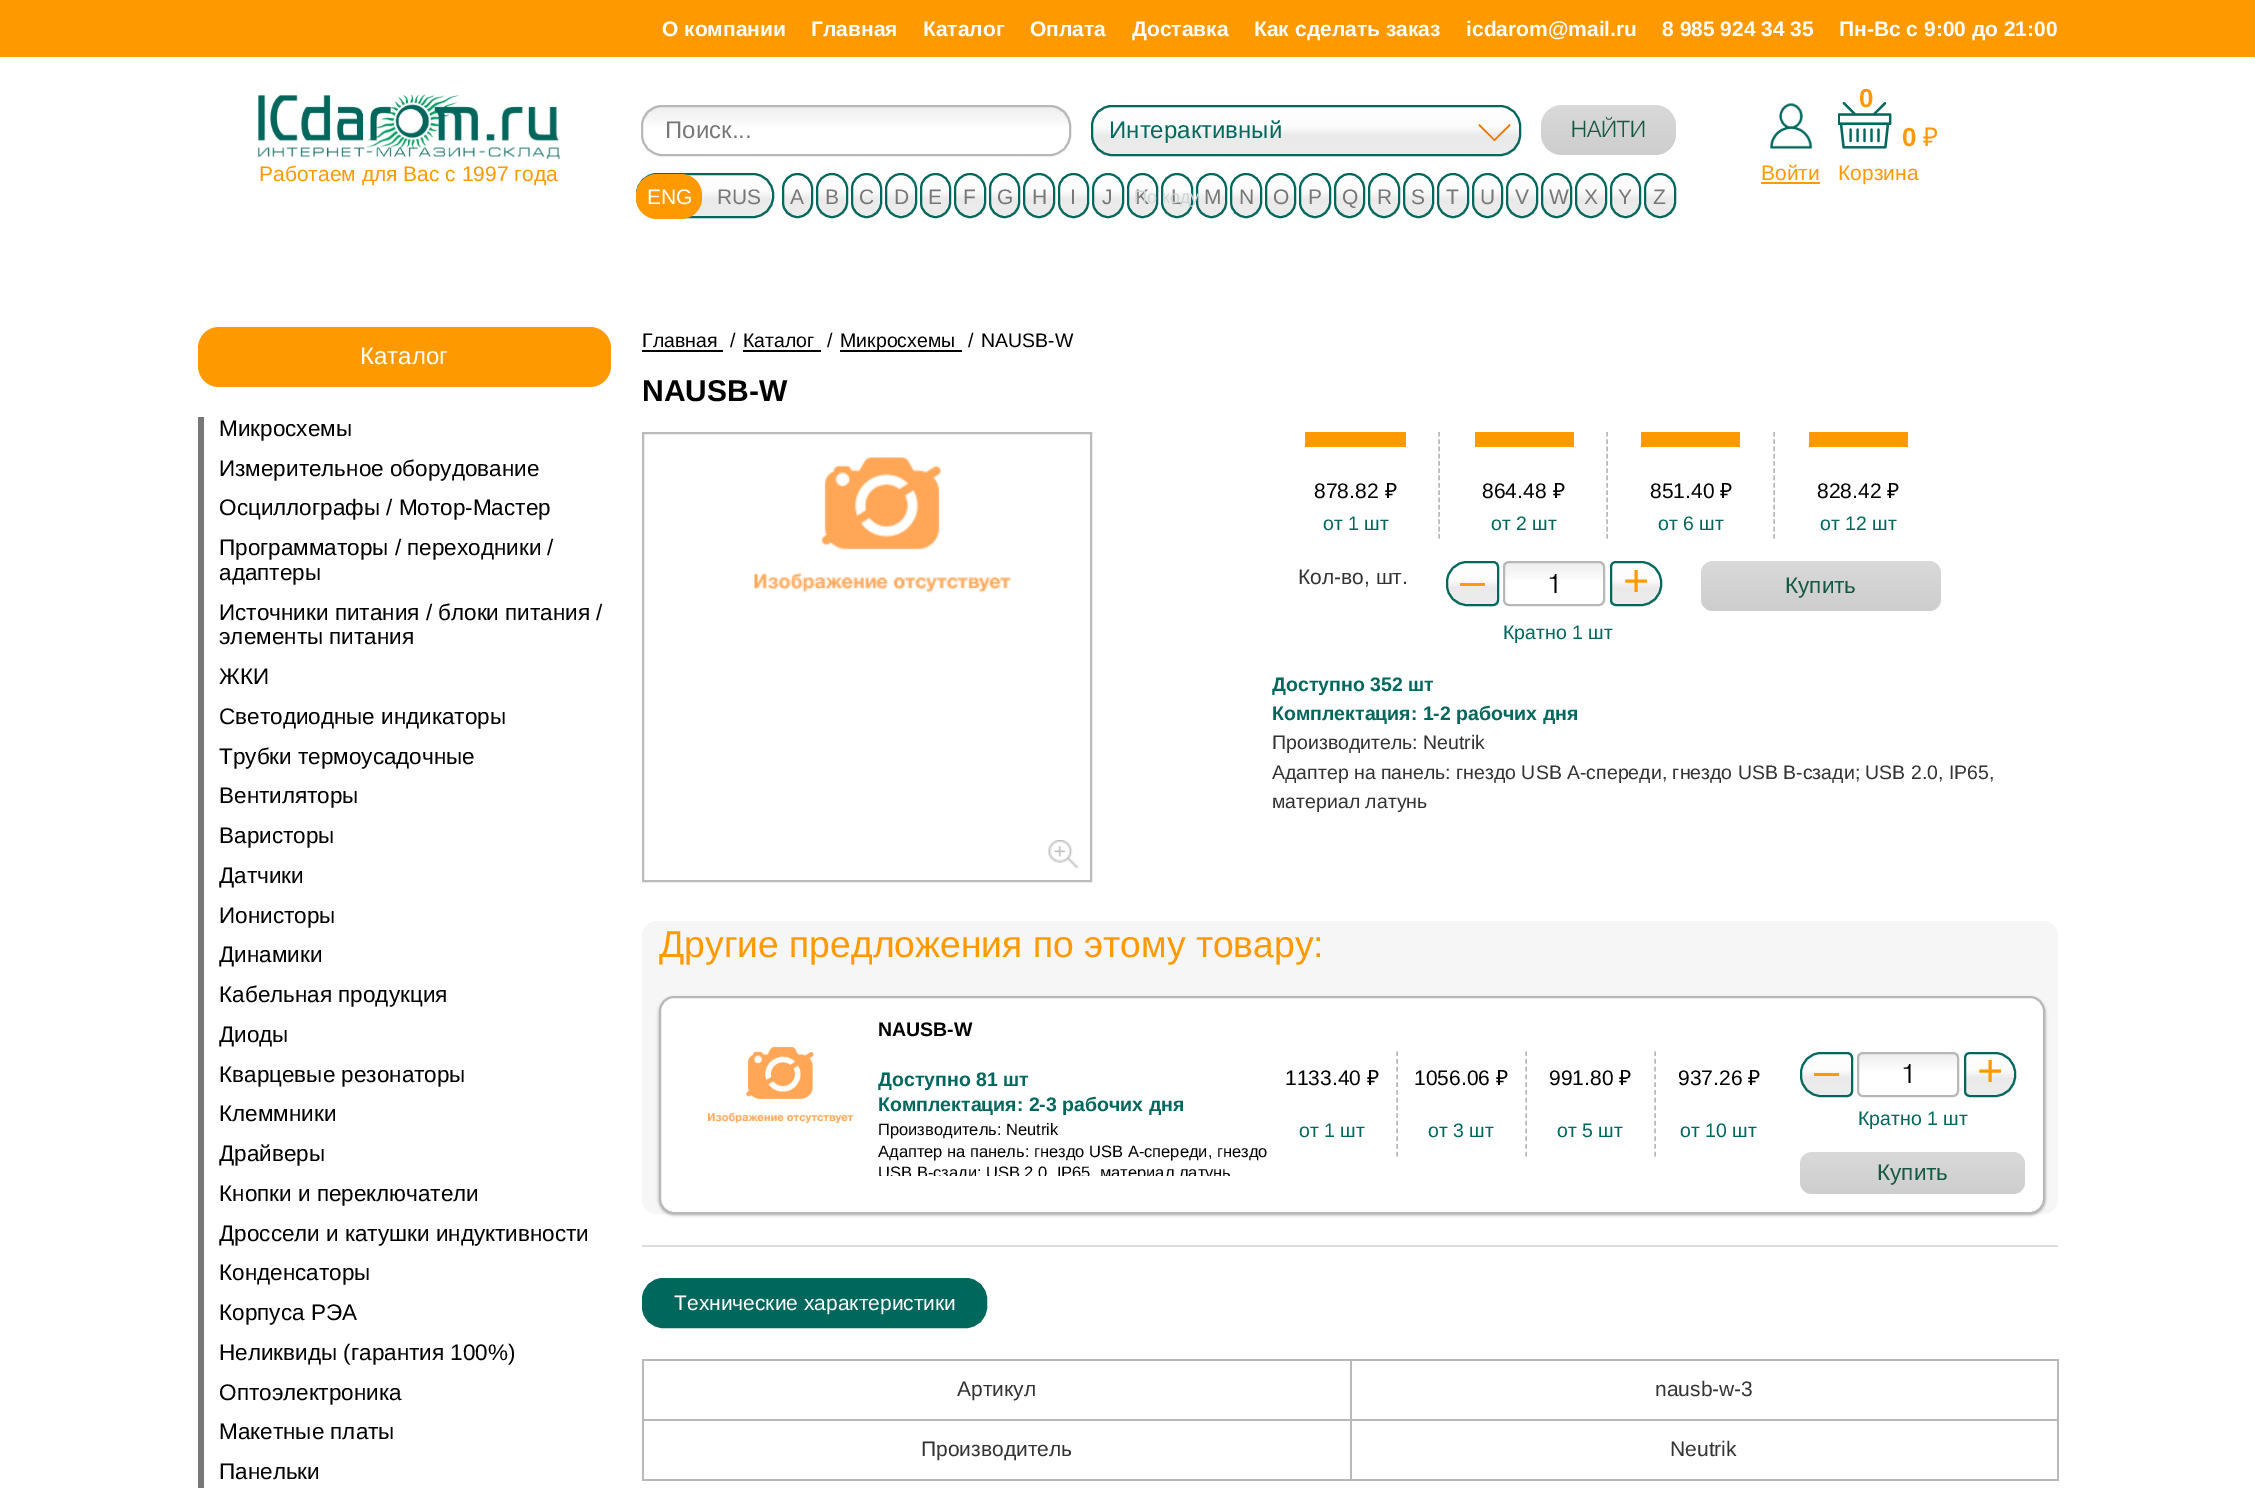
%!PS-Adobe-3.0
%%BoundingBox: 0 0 2255 1488
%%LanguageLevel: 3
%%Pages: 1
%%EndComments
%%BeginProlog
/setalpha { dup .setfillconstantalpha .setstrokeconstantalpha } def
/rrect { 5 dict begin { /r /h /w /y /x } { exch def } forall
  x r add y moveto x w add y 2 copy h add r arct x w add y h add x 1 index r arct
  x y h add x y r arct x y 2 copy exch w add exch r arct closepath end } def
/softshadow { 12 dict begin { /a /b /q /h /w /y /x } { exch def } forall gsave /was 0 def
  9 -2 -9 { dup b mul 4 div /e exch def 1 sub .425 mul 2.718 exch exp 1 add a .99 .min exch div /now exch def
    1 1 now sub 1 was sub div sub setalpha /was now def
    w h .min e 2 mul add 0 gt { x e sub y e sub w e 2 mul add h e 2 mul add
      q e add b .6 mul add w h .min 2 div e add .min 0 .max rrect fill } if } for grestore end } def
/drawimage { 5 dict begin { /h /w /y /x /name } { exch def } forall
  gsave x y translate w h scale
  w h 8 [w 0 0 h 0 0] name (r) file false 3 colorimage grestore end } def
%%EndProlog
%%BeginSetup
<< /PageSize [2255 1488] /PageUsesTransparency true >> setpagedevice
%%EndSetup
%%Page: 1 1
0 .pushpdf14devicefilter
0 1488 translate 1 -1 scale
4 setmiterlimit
1 setgray
0 0 2255 1488 rectfill
1 0.6 0 setrgbcolor
0 0 2255 57 rectfill
(images/1.raw) 258 94 302 65 drawimage
gsave
641 105 430 51 21 rrect clip newpath
gsave newpath 641 107 moveto 1071 107 lineto 1071 155 lineto 641 155 lineto closepath clip newpath
<< /ShadingType 2 /ColorSpace /DeviceRGB /Coords [856 155 856 107] /Extend [true true] /Function << /FunctionType 3 /Domain [0 1] /Functions [<< /FunctionType 2 /Domain [0 1] /C0 [1 1 1] /C1 [1 1 1] /N 1 >> << /FunctionType 2 /Domain [0 1] /C0 [1 1 1] /C1 [0.933 0.933 0.933] /N 1 >>] /Bounds [0.55] /Encode [0 1 0 1] >> >> shfill grestore
grestore
0.722 setgray
2 setlinewidth
642 106 428 49 20 rrect stroke
gsave
1091 105 430 51 21 rrect clip newpath
gsave newpath 1091 107 moveto 1521 107 lineto 1521 155 lineto 1091 155 lineto closepath clip newpath
<< /ShadingType 2 /ColorSpace /DeviceRGB /Coords [1306 155 1306 107] /Extend [true true] /Function << /FunctionType 3 /Domain [0 1] /Functions [<< /FunctionType 2 /Domain [0 1] /C0 [0.922 0.922 0.922] /C1 [0.918 0.918 0.918] /N 1 >> << /FunctionType 2 /Domain [0 1] /C0 [0.918 0.918 0.918] /C1 [0.988 0.988 0.988] /N 1 >> << /FunctionType 2 /Domain [0 1] /C0 [0.988 0.988 0.988] /C1 [1 1 1] /N 1 >>] /Bounds [0.4 0.6] /Encode [0 1 0 1 0 1] >> >> shfill grestore
grestore
0 0.404 0.361 setrgbcolor
1092 106 428 49 20 rrect stroke
0.918 0.475 0 setrgbcolor
newpath 1509.5 124 moveto 1510.5 125.5 lineto 1494.5 141 lineto 1493.5 140 lineto closepath fill
newpath 1479.5 124 moveto 1495.5 140 lineto 1494.5 141 lineto 1478.5 125.5 lineto closepath fill
0.8 setgray
1541 105 135 50 21 rrect fill
0.25 setalpha
gsave 1541 105 135 50 21 rrect clip newpath
<< /ShadingType 2 /ColorSpace /DeviceRGB /Coords [1608 155 1608 105] /Extend [true true] /Function << /FunctionType 3 /Domain [0 1] /Functions [<< /FunctionType 2 /Domain [0 1] /C0 [0.847 0.847 0.847] /C1 [0.816 0.82 0.816] /N 1 >> << /FunctionType 2 /Domain [0 1] /C0 [0.816 0.82 0.816] /C1 [1 1 1] /N 1 >>] /Bounds [0.01] /Encode [0 1 0 1] >> >> shfill grestore
1 setalpha
(images/2.raw) 1770 103 43 46 drawimage
1 0.6 0 setrgbcolor
1761 182 59 2 rectfill
(images/3.raw) 1838 102 54 47 drawimage
gsave
636 173 138 45 21 rrect clip newpath
gsave newpath 636 174 moveto 774 174 lineto 774 216 lineto 636 216 lineto closepath clip newpath
<< /ShadingType 2 /ColorSpace /DeviceRGB /Coords [705 216 705 174] /Extend [true true] /Function << /FunctionType 3 /Domain [0 1] /Functions [<< /FunctionType 2 /Domain [0 1] /C0 [0.922 0.922 0.922] /C1 [0.918 0.918 0.918] /N 1 >> << /FunctionType 2 /Domain [0 1] /C0 [0.918 0.918 0.918] /C1 [0.988 0.988 0.988] /N 1 >> << /FunctionType 2 /Domain [0 1] /C0 [0.988 0.988 0.988] /C1 [1 1 1] /N 1 >>] /Bounds [0.4 0.6] /Encode [0 1 0 1 0 1] >> >> shfill grestore
grestore
0 0.404 0.361 setrgbcolor
637 174 136 43 20 rrect stroke
1 0.6 0 setrgbcolor
636 174 66 45 21 rrect fill
gsave
782 173 31 45 15.5 rrect clip newpath
gsave newpath 782 174 moveto 813 174 lineto 813 216 lineto 782 216 lineto closepath clip newpath
<< /ShadingType 2 /ColorSpace /DeviceRGB /Coords [797 216 797 174] /Extend [true true] /Function << /FunctionType 3 /Domain [0 1] /Functions [<< /FunctionType 2 /Domain [0 1] /C0 [0.922 0.922 0.922] /C1 [0.918 0.918 0.918] /N 1 >> << /FunctionType 2 /Domain [0 1] /C0 [0.918 0.918 0.918] /C1 [0.988 0.988 0.988] /N 1 >> << /FunctionType 2 /Domain [0 1] /C0 [0.988 0.988 0.988] /C1 [1 1 1] /N 1 >>] /Bounds [0.4 0.6] /Encode [0 1 0 1 0 1] >> >> shfill grestore
grestore
0 0.404 0.361 setrgbcolor
783 174 29 43 14.5 rrect stroke
gsave
816 173 32 45 16 rrect clip newpath
gsave newpath 816 174 moveto 848 174 lineto 848 216 lineto 816 216 lineto closepath clip newpath
<< /ShadingType 2 /ColorSpace /DeviceRGB /Coords [832 216 832 174] /Extend [true true] /Function << /FunctionType 3 /Domain [0 1] /Functions [<< /FunctionType 2 /Domain [0 1] /C0 [0.922 0.922 0.922] /C1 [0.918 0.918 0.918] /N 1 >> << /FunctionType 2 /Domain [0 1] /C0 [0.918 0.918 0.918] /C1 [0.988 0.988 0.988] /N 1 >> << /FunctionType 2 /Domain [0 1] /C0 [0.988 0.988 0.988] /C1 [1 1 1] /N 1 >>] /Bounds [0.4 0.6] /Encode [0 1 0 1 0 1] >> >> shfill grestore
grestore
817 174 30 43 15 rrect stroke
gsave
851 173 31 45 15.5 rrect clip newpath
gsave newpath 851 174 moveto 882 174 lineto 882 216 lineto 851 216 lineto closepath clip newpath
<< /ShadingType 2 /ColorSpace /DeviceRGB /Coords [866 216 866 174] /Extend [true true] /Function << /FunctionType 3 /Domain [0 1] /Functions [<< /FunctionType 2 /Domain [0 1] /C0 [0.922 0.922 0.922] /C1 [0.918 0.918 0.918] /N 1 >> << /FunctionType 2 /Domain [0 1] /C0 [0.918 0.918 0.918] /C1 [0.988 0.988 0.988] /N 1 >> << /FunctionType 2 /Domain [0 1] /C0 [0.988 0.988 0.988] /C1 [1 1 1] /N 1 >>] /Bounds [0.4 0.6] /Encode [0 1 0 1 0 1] >> >> shfill grestore
grestore
852 174 29 43 14.5 rrect stroke
gsave
885 173 32 45 16 rrect clip newpath
gsave newpath 885 174 moveto 917 174 lineto 917 216 lineto 885 216 lineto closepath clip newpath
<< /ShadingType 2 /ColorSpace /DeviceRGB /Coords [901 216 901 174] /Extend [true true] /Function << /FunctionType 3 /Domain [0 1] /Functions [<< /FunctionType 2 /Domain [0 1] /C0 [0.922 0.922 0.922] /C1 [0.918 0.918 0.918] /N 1 >> << /FunctionType 2 /Domain [0 1] /C0 [0.918 0.918 0.918] /C1 [0.988 0.988 0.988] /N 1 >> << /FunctionType 2 /Domain [0 1] /C0 [0.988 0.988 0.988] /C1 [1 1 1] /N 1 >>] /Bounds [0.4 0.6] /Encode [0 1 0 1 0 1] >> >> shfill grestore
grestore
886 174 30 43 15 rrect stroke
gsave
920 173 31 45 15.5 rrect clip newpath
gsave newpath 920 174 moveto 951 174 lineto 951 216 lineto 920 216 lineto closepath clip newpath
<< /ShadingType 2 /ColorSpace /DeviceRGB /Coords [935 216 935 174] /Extend [true true] /Function << /FunctionType 3 /Domain [0 1] /Functions [<< /FunctionType 2 /Domain [0 1] /C0 [0.922 0.922 0.922] /C1 [0.918 0.918 0.918] /N 1 >> << /FunctionType 2 /Domain [0 1] /C0 [0.918 0.918 0.918] /C1 [0.988 0.988 0.988] /N 1 >> << /FunctionType 2 /Domain [0 1] /C0 [0.988 0.988 0.988] /C1 [1 1 1] /N 1 >>] /Bounds [0.4 0.6] /Encode [0 1 0 1 0 1] >> >> shfill grestore
grestore
921 174 29 43 14.5 rrect stroke
gsave
954 173 32 45 16 rrect clip newpath
gsave newpath 954 174 moveto 986 174 lineto 986 216 lineto 954 216 lineto closepath clip newpath
<< /ShadingType 2 /ColorSpace /DeviceRGB /Coords [970 216 970 174] /Extend [true true] /Function << /FunctionType 3 /Domain [0 1] /Functions [<< /FunctionType 2 /Domain [0 1] /C0 [0.922 0.922 0.922] /C1 [0.918 0.918 0.918] /N 1 >> << /FunctionType 2 /Domain [0 1] /C0 [0.918 0.918 0.918] /C1 [0.988 0.988 0.988] /N 1 >> << /FunctionType 2 /Domain [0 1] /C0 [0.988 0.988 0.988] /C1 [1 1 1] /N 1 >>] /Bounds [0.4 0.6] /Encode [0 1 0 1 0 1] >> >> shfill grestore
grestore
955 174 30 43 15 rrect stroke
gsave
989 173 31 45 15.5 rrect clip newpath
gsave newpath 989 174 moveto 1020 174 lineto 1020 216 lineto 989 216 lineto closepath clip newpath
<< /ShadingType 2 /ColorSpace /DeviceRGB /Coords [1004 216 1004 174] /Extend [true true] /Function << /FunctionType 3 /Domain [0 1] /Functions [<< /FunctionType 2 /Domain [0 1] /C0 [0.922 0.922 0.922] /C1 [0.918 0.918 0.918] /N 1 >> << /FunctionType 2 /Domain [0 1] /C0 [0.918 0.918 0.918] /C1 [0.988 0.988 0.988] /N 1 >> << /FunctionType 2 /Domain [0 1] /C0 [0.988 0.988 0.988] /C1 [1 1 1] /N 1 >>] /Bounds [0.4 0.6] /Encode [0 1 0 1 0 1] >> >> shfill grestore
grestore
990 174 29 43 14.5 rrect stroke
gsave
1023 173 32 45 16 rrect clip newpath
gsave newpath 1023 174 moveto 1055 174 lineto 1055 216 lineto 1023 216 lineto closepath clip newpath
<< /ShadingType 2 /ColorSpace /DeviceRGB /Coords [1039 216 1039 174] /Extend [true true] /Function << /FunctionType 3 /Domain [0 1] /Functions [<< /FunctionType 2 /Domain [0 1] /C0 [0.922 0.922 0.922] /C1 [0.918 0.918 0.918] /N 1 >> << /FunctionType 2 /Domain [0 1] /C0 [0.918 0.918 0.918] /C1 [0.988 0.988 0.988] /N 1 >> << /FunctionType 2 /Domain [0 1] /C0 [0.988 0.988 0.988] /C1 [1 1 1] /N 1 >>] /Bounds [0.4 0.6] /Encode [0 1 0 1 0 1] >> >> shfill grestore
grestore
1024 174 30 43 15 rrect stroke
gsave
1058 173 31 45 15.5 rrect clip newpath
gsave newpath 1058 174 moveto 1089 174 lineto 1089 216 lineto 1058 216 lineto closepath clip newpath
<< /ShadingType 2 /ColorSpace /DeviceRGB /Coords [1073 216 1073 174] /Extend [true true] /Function << /FunctionType 3 /Domain [0 1] /Functions [<< /FunctionType 2 /Domain [0 1] /C0 [0.922 0.922 0.922] /C1 [0.918 0.918 0.918] /N 1 >> << /FunctionType 2 /Domain [0 1] /C0 [0.918 0.918 0.918] /C1 [0.988 0.988 0.988] /N 1 >> << /FunctionType 2 /Domain [0 1] /C0 [0.988 0.988 0.988] /C1 [1 1 1] /N 1 >>] /Bounds [0.4 0.6] /Encode [0 1 0 1 0 1] >> >> shfill grestore
grestore
1059 174 29 43 14.5 rrect stroke
gsave
1092 173 32 45 16 rrect clip newpath
gsave newpath 1092 174 moveto 1124 174 lineto 1124 216 lineto 1092 216 lineto closepath clip newpath
<< /ShadingType 2 /ColorSpace /DeviceRGB /Coords [1108 216 1108 174] /Extend [true true] /Function << /FunctionType 3 /Domain [0 1] /Functions [<< /FunctionType 2 /Domain [0 1] /C0 [0.922 0.922 0.922] /C1 [0.918 0.918 0.918] /N 1 >> << /FunctionType 2 /Domain [0 1] /C0 [0.918 0.918 0.918] /C1 [0.988 0.988 0.988] /N 1 >> << /FunctionType 2 /Domain [0 1] /C0 [0.988 0.988 0.988] /C1 [1 1 1] /N 1 >>] /Bounds [0.4 0.6] /Encode [0 1 0 1 0 1] >> >> shfill grestore
grestore
1093 174 30 43 15 rrect stroke
gsave
1127 173 31 45 15.5 rrect clip newpath
gsave newpath 1127 174 moveto 1158 174 lineto 1158 216 lineto 1127 216 lineto closepath clip newpath
<< /ShadingType 2 /ColorSpace /DeviceRGB /Coords [1142 216 1142 174] /Extend [true true] /Function << /FunctionType 3 /Domain [0 1] /Functions [<< /FunctionType 2 /Domain [0 1] /C0 [0.922 0.922 0.922] /C1 [0.918 0.918 0.918] /N 1 >> << /FunctionType 2 /Domain [0 1] /C0 [0.918 0.918 0.918] /C1 [0.988 0.988 0.988] /N 1 >> << /FunctionType 2 /Domain [0 1] /C0 [0.988 0.988 0.988] /C1 [1 1 1] /N 1 >>] /Bounds [0.4 0.6] /Encode [0 1 0 1 0 1] >> >> shfill grestore
grestore
1128 174 29 43 14.5 rrect stroke
gsave
1161 173 32 45 16 rrect clip newpath
gsave newpath 1161 174 moveto 1193 174 lineto 1193 216 lineto 1161 216 lineto closepath clip newpath
<< /ShadingType 2 /ColorSpace /DeviceRGB /Coords [1177 216 1177 174] /Extend [true true] /Function << /FunctionType 3 /Domain [0 1] /Functions [<< /FunctionType 2 /Domain [0 1] /C0 [0.922 0.922 0.922] /C1 [0.918 0.918 0.918] /N 1 >> << /FunctionType 2 /Domain [0 1] /C0 [0.918 0.918 0.918] /C1 [0.988 0.988 0.988] /N 1 >> << /FunctionType 2 /Domain [0 1] /C0 [0.988 0.988 0.988] /C1 [1 1 1] /N 1 >>] /Bounds [0.4 0.6] /Encode [0 1 0 1 0 1] >> >> shfill grestore
grestore
1162 174 30 43 15 rrect stroke
gsave
1196 173 31 45 15.5 rrect clip newpath
gsave newpath 1196 174 moveto 1227 174 lineto 1227 216 lineto 1196 216 lineto closepath clip newpath
<< /ShadingType 2 /ColorSpace /DeviceRGB /Coords [1211 216 1211 174] /Extend [true true] /Function << /FunctionType 3 /Domain [0 1] /Functions [<< /FunctionType 2 /Domain [0 1] /C0 [0.922 0.922 0.922] /C1 [0.918 0.918 0.918] /N 1 >> << /FunctionType 2 /Domain [0 1] /C0 [0.918 0.918 0.918] /C1 [0.988 0.988 0.988] /N 1 >> << /FunctionType 2 /Domain [0 1] /C0 [0.988 0.988 0.988] /C1 [1 1 1] /N 1 >>] /Bounds [0.4 0.6] /Encode [0 1 0 1 0 1] >> >> shfill grestore
grestore
1197 174 29 43 14.5 rrect stroke
gsave
1230 173 32 45 16 rrect clip newpath
gsave newpath 1230 174 moveto 1262 174 lineto 1262 216 lineto 1230 216 lineto closepath clip newpath
<< /ShadingType 2 /ColorSpace /DeviceRGB /Coords [1246 216 1246 174] /Extend [true true] /Function << /FunctionType 3 /Domain [0 1] /Functions [<< /FunctionType 2 /Domain [0 1] /C0 [0.922 0.922 0.922] /C1 [0.918 0.918 0.918] /N 1 >> << /FunctionType 2 /Domain [0 1] /C0 [0.918 0.918 0.918] /C1 [0.988 0.988 0.988] /N 1 >> << /FunctionType 2 /Domain [0 1] /C0 [0.988 0.988 0.988] /C1 [1 1 1] /N 1 >>] /Bounds [0.4 0.6] /Encode [0 1 0 1 0 1] >> >> shfill grestore
grestore
1231 174 30 43 15 rrect stroke
gsave
1265 173 31 45 15.5 rrect clip newpath
gsave newpath 1265 174 moveto 1296 174 lineto 1296 216 lineto 1265 216 lineto closepath clip newpath
<< /ShadingType 2 /ColorSpace /DeviceRGB /Coords [1280 216 1280 174] /Extend [true true] /Function << /FunctionType 3 /Domain [0 1] /Functions [<< /FunctionType 2 /Domain [0 1] /C0 [0.922 0.922 0.922] /C1 [0.918 0.918 0.918] /N 1 >> << /FunctionType 2 /Domain [0 1] /C0 [0.918 0.918 0.918] /C1 [0.988 0.988 0.988] /N 1 >> << /FunctionType 2 /Domain [0 1] /C0 [0.988 0.988 0.988] /C1 [1 1 1] /N 1 >>] /Bounds [0.4 0.6] /Encode [0 1 0 1 0 1] >> >> shfill grestore
grestore
1266 174 29 43 14.5 rrect stroke
gsave
1299 173 32 45 16 rrect clip newpath
gsave newpath 1299 174 moveto 1331 174 lineto 1331 216 lineto 1299 216 lineto closepath clip newpath
<< /ShadingType 2 /ColorSpace /DeviceRGB /Coords [1315 216 1315 174] /Extend [true true] /Function << /FunctionType 3 /Domain [0 1] /Functions [<< /FunctionType 2 /Domain [0 1] /C0 [0.922 0.922 0.922] /C1 [0.918 0.918 0.918] /N 1 >> << /FunctionType 2 /Domain [0 1] /C0 [0.918 0.918 0.918] /C1 [0.988 0.988 0.988] /N 1 >> << /FunctionType 2 /Domain [0 1] /C0 [0.988 0.988 0.988] /C1 [1 1 1] /N 1 >>] /Bounds [0.4 0.6] /Encode [0 1 0 1 0 1] >> >> shfill grestore
grestore
1300 174 30 43 15 rrect stroke
gsave
1334 173 31 45 15.5 rrect clip newpath
gsave newpath 1334 174 moveto 1365 174 lineto 1365 216 lineto 1334 216 lineto closepath clip newpath
<< /ShadingType 2 /ColorSpace /DeviceRGB /Coords [1349 216 1349 174] /Extend [true true] /Function << /FunctionType 3 /Domain [0 1] /Functions [<< /FunctionType 2 /Domain [0 1] /C0 [0.922 0.922 0.922] /C1 [0.918 0.918 0.918] /N 1 >> << /FunctionType 2 /Domain [0 1] /C0 [0.918 0.918 0.918] /C1 [0.988 0.988 0.988] /N 1 >> << /FunctionType 2 /Domain [0 1] /C0 [0.988 0.988 0.988] /C1 [1 1 1] /N 1 >>] /Bounds [0.4 0.6] /Encode [0 1 0 1 0 1] >> >> shfill grestore
grestore
1335 174 29 43 14.5 rrect stroke
gsave
1368 173 32 45 16 rrect clip newpath
gsave newpath 1368 174 moveto 1400 174 lineto 1400 216 lineto 1368 216 lineto closepath clip newpath
<< /ShadingType 2 /ColorSpace /DeviceRGB /Coords [1384 216 1384 174] /Extend [true true] /Function << /FunctionType 3 /Domain [0 1] /Functions [<< /FunctionType 2 /Domain [0 1] /C0 [0.922 0.922 0.922] /C1 [0.918 0.918 0.918] /N 1 >> << /FunctionType 2 /Domain [0 1] /C0 [0.918 0.918 0.918] /C1 [0.988 0.988 0.988] /N 1 >> << /FunctionType 2 /Domain [0 1] /C0 [0.988 0.988 0.988] /C1 [1 1 1] /N 1 >>] /Bounds [0.4 0.6] /Encode [0 1 0 1 0 1] >> >> shfill grestore
grestore
1369 174 30 43 15 rrect stroke
gsave
1403 173 31 45 15.5 rrect clip newpath
gsave newpath 1403 174 moveto 1434 174 lineto 1434 216 lineto 1403 216 lineto closepath clip newpath
<< /ShadingType 2 /ColorSpace /DeviceRGB /Coords [1418 216 1418 174] /Extend [true true] /Function << /FunctionType 3 /Domain [0 1] /Functions [<< /FunctionType 2 /Domain [0 1] /C0 [0.922 0.922 0.922] /C1 [0.918 0.918 0.918] /N 1 >> << /FunctionType 2 /Domain [0 1] /C0 [0.918 0.918 0.918] /C1 [0.988 0.988 0.988] /N 1 >> << /FunctionType 2 /Domain [0 1] /C0 [0.988 0.988 0.988] /C1 [1 1 1] /N 1 >>] /Bounds [0.4 0.6] /Encode [0 1 0 1 0 1] >> >> shfill grestore
grestore
1404 174 29 43 14.5 rrect stroke
gsave
1437 173 32 45 16 rrect clip newpath
gsave newpath 1437 174 moveto 1469 174 lineto 1469 216 lineto 1437 216 lineto closepath clip newpath
<< /ShadingType 2 /ColorSpace /DeviceRGB /Coords [1453 216 1453 174] /Extend [true true] /Function << /FunctionType 3 /Domain [0 1] /Functions [<< /FunctionType 2 /Domain [0 1] /C0 [0.922 0.922 0.922] /C1 [0.918 0.918 0.918] /N 1 >> << /FunctionType 2 /Domain [0 1] /C0 [0.918 0.918 0.918] /C1 [0.988 0.988 0.988] /N 1 >> << /FunctionType 2 /Domain [0 1] /C0 [0.988 0.988 0.988] /C1 [1 1 1] /N 1 >>] /Bounds [0.4 0.6] /Encode [0 1 0 1 0 1] >> >> shfill grestore
grestore
1438 174 30 43 15 rrect stroke
gsave
1472 173 31 45 15.5 rrect clip newpath
gsave newpath 1472 174 moveto 1503 174 lineto 1503 216 lineto 1472 216 lineto closepath clip newpath
<< /ShadingType 2 /ColorSpace /DeviceRGB /Coords [1487 216 1487 174] /Extend [true true] /Function << /FunctionType 3 /Domain [0 1] /Functions [<< /FunctionType 2 /Domain [0 1] /C0 [0.922 0.922 0.922] /C1 [0.918 0.918 0.918] /N 1 >> << /FunctionType 2 /Domain [0 1] /C0 [0.918 0.918 0.918] /C1 [0.988 0.988 0.988] /N 1 >> << /FunctionType 2 /Domain [0 1] /C0 [0.988 0.988 0.988] /C1 [1 1 1] /N 1 >>] /Bounds [0.4 0.6] /Encode [0 1 0 1 0 1] >> >> shfill grestore
grestore
1473 174 29 43 14.5 rrect stroke
gsave
1506 173 32 45 16 rrect clip newpath
gsave newpath 1506 174 moveto 1538 174 lineto 1538 216 lineto 1506 216 lineto closepath clip newpath
<< /ShadingType 2 /ColorSpace /DeviceRGB /Coords [1522 216 1522 174] /Extend [true true] /Function << /FunctionType 3 /Domain [0 1] /Functions [<< /FunctionType 2 /Domain [0 1] /C0 [0.922 0.922 0.922] /C1 [0.918 0.918 0.918] /N 1 >> << /FunctionType 2 /Domain [0 1] /C0 [0.918 0.918 0.918] /C1 [0.988 0.988 0.988] /N 1 >> << /FunctionType 2 /Domain [0 1] /C0 [0.988 0.988 0.988] /C1 [1 1 1] /N 1 >>] /Bounds [0.4 0.6] /Encode [0 1 0 1 0 1] >> >> shfill grestore
grestore
1507 174 30 43 15 rrect stroke
gsave
1541 173 31 45 15.5 rrect clip newpath
gsave newpath 1541 174 moveto 1572 174 lineto 1572 216 lineto 1541 216 lineto closepath clip newpath
<< /ShadingType 2 /ColorSpace /DeviceRGB /Coords [1556 216 1556 174] /Extend [true true] /Function << /FunctionType 3 /Domain [0 1] /Functions [<< /FunctionType 2 /Domain [0 1] /C0 [0.922 0.922 0.922] /C1 [0.918 0.918 0.918] /N 1 >> << /FunctionType 2 /Domain [0 1] /C0 [0.918 0.918 0.918] /C1 [0.988 0.988 0.988] /N 1 >> << /FunctionType 2 /Domain [0 1] /C0 [0.988 0.988 0.988] /C1 [1 1 1] /N 1 >>] /Bounds [0.4 0.6] /Encode [0 1 0 1 0 1] >> >> shfill grestore
grestore
1542 174 29 43 14.5 rrect stroke
gsave
1575 173 32 45 16 rrect clip newpath
gsave newpath 1575 174 moveto 1607 174 lineto 1607 216 lineto 1575 216 lineto closepath clip newpath
<< /ShadingType 2 /ColorSpace /DeviceRGB /Coords [1591 216 1591 174] /Extend [true true] /Function << /FunctionType 3 /Domain [0 1] /Functions [<< /FunctionType 2 /Domain [0 1] /C0 [0.922 0.922 0.922] /C1 [0.918 0.918 0.918] /N 1 >> << /FunctionType 2 /Domain [0 1] /C0 [0.918 0.918 0.918] /C1 [0.988 0.988 0.988] /N 1 >> << /FunctionType 2 /Domain [0 1] /C0 [0.988 0.988 0.988] /C1 [1 1 1] /N 1 >>] /Bounds [0.4 0.6] /Encode [0 1 0 1 0 1] >> >> shfill grestore
grestore
1576 174 30 43 15 rrect stroke
gsave
1610 173 31 45 15.5 rrect clip newpath
gsave newpath 1610 174 moveto 1641 174 lineto 1641 216 lineto 1610 216 lineto closepath clip newpath
<< /ShadingType 2 /ColorSpace /DeviceRGB /Coords [1625 216 1625 174] /Extend [true true] /Function << /FunctionType 3 /Domain [0 1] /Functions [<< /FunctionType 2 /Domain [0 1] /C0 [0.922 0.922 0.922] /C1 [0.918 0.918 0.918] /N 1 >> << /FunctionType 2 /Domain [0 1] /C0 [0.918 0.918 0.918] /C1 [0.988 0.988 0.988] /N 1 >> << /FunctionType 2 /Domain [0 1] /C0 [0.988 0.988 0.988] /C1 [1 1 1] /N 1 >>] /Bounds [0.4 0.6] /Encode [0 1 0 1 0 1] >> >> shfill grestore
grestore
1611 174 29 43 14.5 rrect stroke
gsave
1644 173 32 45 16 rrect clip newpath
gsave newpath 1644 174 moveto 1676 174 lineto 1676 216 lineto 1644 216 lineto closepath clip newpath
<< /ShadingType 2 /ColorSpace /DeviceRGB /Coords [1660 216 1660 174] /Extend [true true] /Function << /FunctionType 3 /Domain [0 1] /Functions [<< /FunctionType 2 /Domain [0 1] /C0 [0.922 0.922 0.922] /C1 [0.918 0.918 0.918] /N 1 >> << /FunctionType 2 /Domain [0 1] /C0 [0.918 0.918 0.918] /C1 [0.988 0.988 0.988] /N 1 >> << /FunctionType 2 /Domain [0 1] /C0 [0.988 0.988 0.988] /C1 [1 1 1] /N 1 >>] /Bounds [0.4 0.6] /Encode [0 1 0 1 0 1] >> >> shfill grestore
grestore
1645 174 30 43 15 rrect stroke
1 0.6 0 setrgbcolor
198 327 413 60 21 rrect fill
0.467 setgray
198 417 6 1071 rectfill
0 setgray
642 350 81 2 rectfill
743 350 78 2 rectfill
840 350 122 2 rectfill
0.733 setgray
643 433 448 448 rectstroke
(images/4.raw) 754 457 257 136 drawimage
(images/5.raw) 1048 840 31 29 drawimage
1 0.6 0 setrgbcolor
1305 432 101 15 rectfill
0.722 setgray
1.5 setlinewidth
[4.5 2.79] 0 setdash
newpath 1439 432 moveto 1439 538.5 lineto stroke
1 0.6 0 setrgbcolor
1475 432 99 15 rectfill
0.722 setgray
newpath 1607 432 moveto 1607 538.5 lineto stroke
1 0.6 0 setrgbcolor
1641 432 99 15 rectfill
0.722 setgray
newpath 1774 432 moveto 1774 538.5 lineto stroke
1 0.6 0 setrgbcolor
1809 432 99 15 rectfill
gsave
newpath 1467 561 moveto 1493 561 lineto 1496.5 561 1499 563.5 1499 567 curveto 1499 600 lineto 1499 603.5 1496.5 606 1493 606 curveto 1467 606 lineto 1455.5 606 1446 596.5 1446 585 curveto 1446 582 lineto 1446 570.5 1455.5 561 1467 561 curveto closepath clip newpath
gsave newpath 1446 563 moveto 1499 563 lineto 1499 605 lineto 1446 605 lineto closepath clip newpath
<< /ShadingType 2 /ColorSpace /DeviceRGB /Coords [1472 605 1472 563] /Extend [true true] /Function << /FunctionType 3 /Domain [0 1] /Functions [<< /FunctionType 2 /Domain [0 1] /C0 [0.922 0.922 0.922] /C1 [0.918 0.918 0.918] /N 1 >> << /FunctionType 2 /Domain [0 1] /C0 [0.918 0.918 0.918] /C1 [0.988 0.988 0.988] /N 1 >> << /FunctionType 2 /Domain [0 1] /C0 [0.988 0.988 0.988] /C1 [1 1 1] /N 1 >>] /Bounds [0.4 0.6] /Encode [0 1 0 1 0 1] >> >> shfill grestore
grestore
0 0.404 0.361 setrgbcolor
2 setlinewidth
[] 0 setdash
newpath 1467 562 moveto 1493 562 lineto 1496 562 1498 564 1498 567 curveto 1498 600 lineto 1498 603 1496 605 1493 605 curveto 1467 605 lineto 1456 605 1447 596 1447 585 curveto 1447 582 lineto 1447 571 1456 562 1467 562 curveto closepath stroke
gsave
1503 561 102 45 6 rrect clip newpath
gsave newpath 1503 563 moveto 1605 563 lineto 1605 605 lineto 1503 605 lineto closepath clip newpath
<< /ShadingType 2 /ColorSpace /DeviceRGB /Coords [1554 605 1554 563] /Extend [true true] /Function << /FunctionType 3 /Domain [0 1] /Functions [<< /FunctionType 2 /Domain [0 1] /C0 [1 1 1] /C1 [1 1 1] /N 1 >> << /FunctionType 2 /Domain [0 1] /C0 [1 1 1] /C1 [0.933 0.933 0.933] /N 1 >>] /Bounds [0.55] /Encode [0 1 0 1] >> >> shfill grestore
grestore
0.722 setgray
1504 562 100 43 5 rrect stroke
gsave
newpath 1616 561 moveto 1641 561 lineto 1652.5 561 1662 570.5 1662 582 curveto 1662 585 lineto 1662 596.5 1652.5 606 1641 606 curveto 1616 606 lineto 1612.5 606 1610 603.5 1610 600 curveto 1610 567 lineto 1610 563.5 1612.5 561 1616 561 curveto closepath clip newpath
gsave newpath 1610 563 moveto 1662 563 lineto 1662 605 lineto 1610 605 lineto closepath clip newpath
<< /ShadingType 2 /ColorSpace /DeviceRGB /Coords [1636 605 1636 563] /Extend [true true] /Function << /FunctionType 3 /Domain [0 1] /Functions [<< /FunctionType 2 /Domain [0 1] /C0 [0.922 0.922 0.922] /C1 [0.918 0.918 0.918] /N 1 >> << /FunctionType 2 /Domain [0 1] /C0 [0.918 0.918 0.918] /C1 [0.988 0.988 0.988] /N 1 >> << /FunctionType 2 /Domain [0 1] /C0 [0.988 0.988 0.988] /C1 [1 1 1] /N 1 >>] /Bounds [0.4 0.6] /Encode [0 1 0 1 0 1] >> >> shfill grestore
grestore
0 0.404 0.361 setrgbcolor
newpath 1616 562 moveto 1641 562 lineto 1652 562 1661 571 1661 582 curveto 1661 585 lineto 1661 596 1652 605 1641 605 curveto 1616 605 lineto 1613 605 1611 603 1611 600 curveto 1611 567 lineto 1611 564 1613 562 1616 562 curveto closepath stroke
0.8 setgray
1701 561 240 50 12 rrect fill
0.25 setalpha
gsave 1701 561 240 50 12 rrect clip newpath
<< /ShadingType 2 /ColorSpace /DeviceRGB /Coords [1821 611 1821 561] /Extend [true true] /Function << /FunctionType 3 /Domain [0 1] /Functions [<< /FunctionType 2 /Domain [0 1] /C0 [0.847 0.847 0.847] /C1 [0.816 0.82 0.816] /N 1 >> << /FunctionType 2 /Domain [0 1] /C0 [0.816 0.82 0.816] /C1 [1 1 1] /N 1 >>] /Bounds [0.01] /Encode [0 1 0 1] >> >> shfill grestore
1 setalpha
0.965 setgray
642 921 1416 293 15 rrect fill
0.129 0.118 0.122 setrgbcolor
659 998 1386 217 15 1.5 0.35 softshadow
1 setgray
660 997 1384 216 14 rrect gsave fill grestore
0.722 setgray
stroke
(images/6.raw) 708 1047 146 77 drawimage
1.5 setlinewidth
[4.5 3.22] 0 setdash
newpath 1397 1051.5 moveto 1397 1156.5 lineto stroke
newpath 1526 1051.5 moveto 1526 1156.5 lineto stroke
newpath 1655 1051.5 moveto 1655 1156.5 lineto stroke
gsave
newpath 1821 1052 moveto 1847 1052 lineto 1850.5 1052 1853 1054.5 1853 1058 curveto 1853 1091 lineto 1853 1094.5 1850.5 1097 1847 1097 curveto 1821 1097 lineto 1809.5 1097 1800 1087.5 1800 1076 curveto 1800 1073 lineto 1800 1061.5 1809.5 1052 1821 1052 curveto closepath clip newpath
gsave newpath 1800 1053 moveto 1853 1053 lineto 1853 1095 lineto 1800 1095 lineto closepath clip newpath
<< /ShadingType 2 /ColorSpace /DeviceRGB /Coords [1826 1095 1826 1053] /Extend [true true] /Function << /FunctionType 3 /Domain [0 1] /Functions [<< /FunctionType 2 /Domain [0 1] /C0 [0.922 0.922 0.922] /C1 [0.918 0.918 0.918] /N 1 >> << /FunctionType 2 /Domain [0 1] /C0 [0.918 0.918 0.918] /C1 [0.988 0.988 0.988] /N 1 >> << /FunctionType 2 /Domain [0 1] /C0 [0.988 0.988 0.988] /C1 [1 1 1] /N 1 >>] /Bounds [0.4 0.6] /Encode [0 1 0 1 0 1] >> >> shfill grestore
grestore
0 0.404 0.361 setrgbcolor
2 setlinewidth
[] 0 setdash
newpath 1821 1053 moveto 1847 1053 lineto 1850 1053 1852 1055 1852 1058 curveto 1852 1091 lineto 1852 1094 1850 1096 1847 1096 curveto 1821 1096 lineto 1810 1096 1801 1087 1801 1076 curveto 1801 1073 lineto 1801 1062 1810 1053 1821 1053 curveto closepath stroke
gsave
1857 1052 102 45 6 rrect clip newpath
gsave newpath 1857 1053 moveto 1959 1053 lineto 1959 1095 lineto 1857 1095 lineto closepath clip newpath
<< /ShadingType 2 /ColorSpace /DeviceRGB /Coords [1908 1095 1908 1053] /Extend [true true] /Function << /FunctionType 3 /Domain [0 1] /Functions [<< /FunctionType 2 /Domain [0 1] /C0 [1 1 1] /C1 [1 1 1] /N 1 >> << /FunctionType 2 /Domain [0 1] /C0 [1 1 1] /C1 [0.933 0.933 0.933] /N 1 >>] /Bounds [0.55] /Encode [0 1 0 1] >> >> shfill grestore
grestore
0.722 setgray
1858 1053 100 43 5 rrect stroke
gsave
newpath 1970 1052 moveto 1995 1052 lineto 2006.5 1052 2016 1061.5 2016 1073 curveto 2016 1076 lineto 2016 1087.5 2006.5 1097 1995 1097 curveto 1970 1097 lineto 1966.5 1097 1964 1094.5 1964 1091 curveto 1964 1058 lineto 1964 1054.5 1966.5 1052 1970 1052 curveto closepath clip newpath
gsave newpath 1964 1053 moveto 2016 1053 lineto 2016 1095 lineto 1964 1095 lineto closepath clip newpath
<< /ShadingType 2 /ColorSpace /DeviceRGB /Coords [1990 1095 1990 1053] /Extend [true true] /Function << /FunctionType 3 /Domain [0 1] /Functions [<< /FunctionType 2 /Domain [0 1] /C0 [0.922 0.922 0.922] /C1 [0.918 0.918 0.918] /N 1 >> << /FunctionType 2 /Domain [0 1] /C0 [0.918 0.918 0.918] /C1 [0.988 0.988 0.988] /N 1 >> << /FunctionType 2 /Domain [0 1] /C0 [0.988 0.988 0.988] /C1 [1 1 1] /N 1 >>] /Bounds [0.4 0.6] /Encode [0 1 0 1 0 1] >> >> shfill grestore
grestore
0 0.404 0.361 setrgbcolor
newpath 1970 1053 moveto 1995 1053 lineto 2006 1053 2015 1062 2015 1073 curveto 2015 1076 lineto 2015 1087 2006 1096 1995 1096 curveto 1970 1096 lineto 1967 1096 1965 1094 1965 1091 curveto 1965 1058 lineto 1965 1055 1967 1053 1970 1053 curveto closepath stroke
0.8 setgray
1800 1152 225 42 12 rrect fill
0.25 setalpha
gsave 1800 1152 225 42 12 rrect clip newpath
<< /ShadingType 2 /ColorSpace /DeviceRGB /Coords [1913 1194 1913 1152] /Extend [true true] /Function << /FunctionType 3 /Domain [0 1] /Functions [<< /FunctionType 2 /Domain [0 1] /C0 [0.847 0.847 0.847] /C1 [0.816 0.82 0.816] /N 1 >> << /FunctionType 2 /Domain [0 1] /C0 [0.816 0.82 0.816] /C1 [1 1 1] /N 1 >>] /Bounds [0.01] /Encode [0 1 0 1] >> >> shfill grestore
1 setalpha
0.867 setgray
642 1245 1416 2 rectfill
0 0.404 0.361 setrgbcolor
643 1279 343 48 20 rrect gsave fill grestore
stroke
0.722 setgray
1350 1359 708 2 rectfill
1350 1419 708 2 rectfill
2057 1419 2 62 rectfill
1350 1479 708 2 rectfill
1350 1419 2 62 rectfill
642 1419 710 2 rectfill
1350 1359 2 62 rectfill
642 1359 710 2 rectfill
642 1479 710 2 rectfill
642 1419 2 62 rectfill
642 1359 2 62 rectfill
2057 1359 2 62 rectfill
/LiberationSans-Bold [21 0 0 -21 0 0] selectfont
1 setgray
662 36 moveto (О компании) show
811 36 moveto (Главная) show
923 36 moveto (Каталог) show
1030 36 moveto (Оплата) show
1132 36 moveto (Доставка) show
1254 36 moveto (Как сделать заказ) show
1466 36 moveto (icdarom@mail.ru) show
1662 36 moveto (8 985 924 34 35) show
1839 36 moveto (Пн-Вс с 9:00 до 21:00) show
/LiberationSans-Regular [21 0 0 -21 0 0] selectfont
1 0.6 0 setrgbcolor
259 181 moveto (Работаем для Вас с 1997 года) show
/LiberationSans-Regular [24 0 0 -24 0 0] selectfont
0.467 setgray
665 138 moveto (Поиск...) show
0 0.404 0.361 setrgbcolor
1109 138 moveto (Интерактивный) show
/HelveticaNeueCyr-Light [22.5 0 0 -22.5 0 0] selectfont
0.082 0.349 0.267 setrgbcolor
1571 137 moveto (НАЙТИ) show
/LiberationSans-Regular [21 0 0 -21 0 0] selectfont
1 0.6 0 setrgbcolor
1761 180 moveto (Войти) show
/LiberationSans-Bold [26 0 0 -26 0 0] selectfont
1859 107 moveto (0) show
1902 146 moveto (0) show
/NotoSans-Regular [26 0 0 -26 0 0] selectfont
1923 146 moveto (₽) show
/LiberationSans-Regular [21 0 0 -21 0 0] selectfont
1838 180 moveto (Корзина) show
1 setgray
647 204 moveto (ENG) show
0.467 setgray
717 204 moveto (RUS) show
790 204 moveto (A) show
825 204 moveto (B) show
859 204 moveto (C) show
894 204 moveto (D) show
928 204 moveto (E) show
963 204 moveto (F) show
997 204 moveto (G) show
1032 204 moveto (H) show
1070 204 moveto (I) show
1102 204 moveto (J) show
1135 204 moveto (K) show
1171 204 moveto (L) show
/LiberationSans-Regular [18 0 0 -18 0 0] selectfont
0.808 0.839 0.839 setrgbcolor
1134 203 moveto (По коду) show
/LiberationSans-Regular [21 0 0 -21 0 0] selectfont
0.467 setgray
1204 204 moveto (M) show
1239 204 moveto (N) show
1273 204 moveto (O) show
1308 204 moveto (P) show
1342 204 moveto (Q) show
1377 204 moveto (R) show
1411 204 moveto (S) show
1446 204 moveto (T) show
1480 204 moveto (U) show
1515 204 moveto (V) show
1549 204 moveto (W) show
1584 204 moveto (X) show
1618 204 moveto (Y) show
1653 204 moveto (Z) show
/LiberationSans-Regular [24 0 0 -24 0 0] selectfont
1 setgray
360 364 moveto (Каталог) show
/LiberationSans-Regular [22.5 0 0 -22.5 0 0] selectfont
0 setgray
219 436 moveto (Микросхемы) show
219 476 moveto (Измерительное оборудование) show
219 515 moveto (Осциллографы / Мотор-Мастер) show
219 555 moveto (Программаторы / переходники /) show
219 580 moveto (адаптеры) show
219 620 moveto (Источники питания / блоки питания /) show
219 644 moveto (элементы питания) show
219 684 moveto (ЖКИ) show
219 724 moveto (Светодиодные индикаторы) show
219 764 moveto (Трубки термоусадочные) show
219 803 moveto (Вентиляторы) show
219 843 moveto (Варисторы) show
219 883 moveto (Датчики) show
219 923 moveto (Ионисторы) show
219 962 moveto (Динамики) show
219 1002 moveto (Кабельная продукция) show
219 1042 moveto (Диоды) show
219 1082 moveto (Кварцевые резонаторы) show
219 1121 moveto (Клеммники) show
219 1161 moveto (Драйверы) show
219 1201 moveto (Кнопки и переключатели) show
219 1241 moveto (Дроссели и катушки индуктивности) show
219 1280 moveto (Конденсаторы) show
219 1320 moveto (Корпуса РЭА) show
219 1360 moveto (Неликвиды \(гарантия 100%\)) show
219 1400 moveto (Оптоэлектроника) show
219 1439 moveto (Макетные платы) show
219 1479 moveto (Панельки) show
/LiberationSans-Regular [19.5 0 0 -19.5 0 0] selectfont
642 347 moveto (Главная) show
730 347 moveto (/) show
743 347 moveto (Каталог) show
827 347 moveto (/) show
840 347 moveto (Микросхемы) show
968 347 moveto (/) show
981 347 moveto (NAUSB-W) show
/LiberationSans-Bold [30 0 0 -30 0 0] selectfont
642 401 moveto (NAUSB-W) show
/LiberationSans-Regular [21 0 0 -21 0 0] selectfont
1314 498 moveto (878.82) show
/NotoSans-Regular [21 0 0 -21 0 0] selectfont
1385 498 moveto (₽) show
/LiberationSans-Regular [19.5 0 0 -19.5 0 0] selectfont
0 0.404 0.361 setrgbcolor
1323 530 moveto (от 1 шт) show
/LiberationSans-Regular [21 0 0 -21 0 0] selectfont
0 setgray
1482 498 moveto (864.48) show
/NotoSans-Regular [21 0 0 -21 0 0] selectfont
1553 498 moveto (₽) show
/LiberationSans-Regular [19.5 0 0 -19.5 0 0] selectfont
0 0.404 0.361 setrgbcolor
1491 530 moveto (от 2 шт) show
/LiberationSans-Regular [21 0 0 -21 0 0] selectfont
0 setgray
1650 498 moveto (851.40) show
/NotoSans-Regular [21 0 0 -21 0 0] selectfont
1720 498 moveto (₽) show
/LiberationSans-Regular [19.5 0 0 -19.5 0 0] selectfont
0 0.404 0.361 setrgbcolor
1658 530 moveto (от 6 шт) show
/LiberationSans-Regular [21 0 0 -21 0 0] selectfont
0 setgray
1817 498 moveto (828.42) show
/NotoSans-Regular [21 0 0 -21 0 0] selectfont
1887 498 moveto (₽) show
/LiberationSans-Regular [19.5 0 0 -19.5 0 0] selectfont
0 0.404 0.361 setrgbcolor
1820 530 moveto (от 12 шт) show
/LiberationSans-Regular [21 0 0 -21 0 0] selectfont
0.2 setgray
1298 584 moveto (Кол-во, шт.) show
/LiberationSans-Regular [45 0 0 -45 0 0] selectfont
1 0.6 0 setrgbcolor
1460 596 moveto (–) show
/HelveticaNeueCyr-Light [27 0 0 -27 0 0] selectfont
0 setgray
1547 593 moveto (1) show
/LiberationSans-Regular [45 0 0 -45 0 0] selectfont
1 0.6 0 setrgbcolor
1623 596 moveto (+) show
/LiberationSans-Regular [22.5 0 0 -22.5 0 0] selectfont
0.082 0.349 0.267 setrgbcolor
1785 593 moveto (Купить) show
/LiberationSans-Regular [19.5 0 0 -19.5 0 0] selectfont
0 0.404 0.361 setrgbcolor
1503 639 moveto (Кратно 1 шт) show
/LiberationSans-Bold [19.5 0 0 -19.5 0 0] selectfont
1272 691 moveto (Доступно 352 шт) show
1272 720 moveto (Комплектация: 1-2 рабочих дня) show
/LiberationSans-Regular [19.5 0 0 -19.5 0 0] selectfont
0.2 setgray
1272 749 moveto (Производитель: Neutrik) show
1272 779 moveto (Адаптер на панель: гнездо USB A-спереди, гнездо USB B-сзади; USB 2.0, IP65,) show
1272 808 moveto (материал латунь) show
/LiberationSans-Regular [37.3 0 0 -37.3 0 0] selectfont
1 0.6 0 setrgbcolor
659 957 moveto (Другие предложения по этому товару:) show
/LiberationSans-Bold [19.5 0 0 -19.5 0 0] selectfont
0 setgray
878 1036 moveto (NAUSB-W) show
gsave
878 1068 390 108 rectclip
0 0.404 0.361 setrgbcolor
878 1086 moveto (Доступно 81 шт) show
grestore
0 0.404 0.361 setrgbcolor
878 1111 moveto (Комплектация: 2-3 рабочих дня) show
/LiberationSans-Regular [16.5 0 0 -16.5 0 0] selectfont
0 setgray
878 1135 moveto (Производитель: Neutrik) show
878 1157 moveto (Адаптер на панель: гнездо USB A-спереди, гнездо) show
gsave
878 1068 390 108 rectclip
878 1178 moveto (USB B-сзади; USB 2.0, IP65, материал латунь) show
grestore
/LiberationSans-Regular [21 0 0 -21 0 0] selectfont
1285 1085 moveto (1133.40) show
/NotoSans-Regular [21 0 0 -21 0 0] selectfont
1367 1085 moveto (₽) show
/LiberationSans-Regular [19.5 0 0 -19.5 0 0] selectfont
0 0.404 0.361 setrgbcolor
1299 1137 moveto (от 1 шт) show
/LiberationSans-Regular [21 0 0 -21 0 0] selectfont
0 setgray
1414 1085 moveto (1056.06) show
/NotoSans-Regular [21 0 0 -21 0 0] selectfont
1496 1085 moveto (₽) show
/LiberationSans-Regular [19.5 0 0 -19.5 0 0] selectfont
0 0.404 0.361 setrgbcolor
1428 1137 moveto (от 3 шт) show
/LiberationSans-Regular [21 0 0 -21 0 0] selectfont
0 setgray
1549 1085 moveto (991.80) show
/NotoSans-Regular [21 0 0 -21 0 0] selectfont
1619 1085 moveto (₽) show
/LiberationSans-Regular [19.5 0 0 -19.5 0 0] selectfont
0 0.404 0.361 setrgbcolor
1557 1137 moveto (от 5 шт) show
/LiberationSans-Regular [21 0 0 -21 0 0] selectfont
0 setgray
1678 1085 moveto (937.26) show
/NotoSans-Regular [21 0 0 -21 0 0] selectfont
1748 1085 moveto (₽) show
/LiberationSans-Regular [19.5 0 0 -19.5 0 0] selectfont
0 0.404 0.361 setrgbcolor
1680 1137 moveto (от 10 шт) show
/LiberationSans-Regular [45 0 0 -45 0 0] selectfont
1 0.6 0 setrgbcolor
1814 1086 moveto (–) show
/HelveticaNeueCyr-Light [27 0 0 -27 0 0] selectfont
0 setgray
1901 1083 moveto (1) show
/LiberationSans-Regular [45 0 0 -45 0 0] selectfont
1 0.6 0 setrgbcolor
1977 1086 moveto (+) show
/LiberationSans-Regular [19.5 0 0 -19.5 0 0] selectfont
0 0.404 0.361 setrgbcolor
1858 1125 moveto (Кратно 1 шт) show
/LiberationSans-Regular [22.5 0 0 -22.5 0 0] selectfont
0.082 0.349 0.267 setrgbcolor
1877 1180 moveto (Купить) show
/LiberationSans-Regular [21 0 0 -21 0 0] selectfont
1 setgray
674 1310 moveto (Технические характеристики) show
0.2 setgray
957 1396 moveto (Артикул) show
1655 1396 moveto (nausb-w-3) show
921 1456 moveto (Производитель) show
1670 1456 moveto (Neutrik) show
.poppdf14devicefilter showpage
%%EOF
